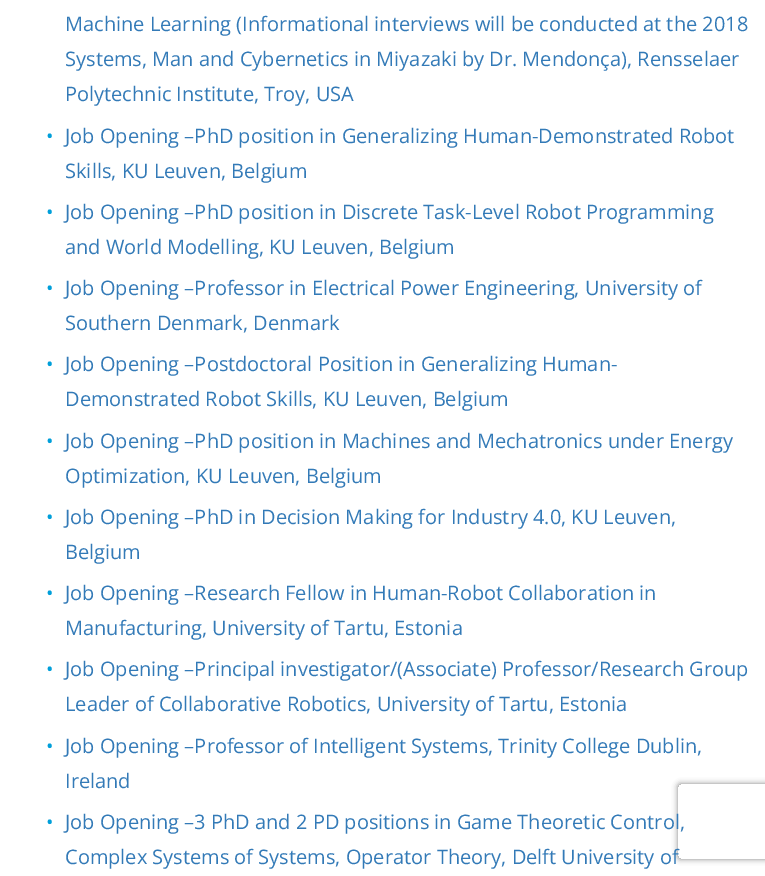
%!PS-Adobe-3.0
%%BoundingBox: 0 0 765 876
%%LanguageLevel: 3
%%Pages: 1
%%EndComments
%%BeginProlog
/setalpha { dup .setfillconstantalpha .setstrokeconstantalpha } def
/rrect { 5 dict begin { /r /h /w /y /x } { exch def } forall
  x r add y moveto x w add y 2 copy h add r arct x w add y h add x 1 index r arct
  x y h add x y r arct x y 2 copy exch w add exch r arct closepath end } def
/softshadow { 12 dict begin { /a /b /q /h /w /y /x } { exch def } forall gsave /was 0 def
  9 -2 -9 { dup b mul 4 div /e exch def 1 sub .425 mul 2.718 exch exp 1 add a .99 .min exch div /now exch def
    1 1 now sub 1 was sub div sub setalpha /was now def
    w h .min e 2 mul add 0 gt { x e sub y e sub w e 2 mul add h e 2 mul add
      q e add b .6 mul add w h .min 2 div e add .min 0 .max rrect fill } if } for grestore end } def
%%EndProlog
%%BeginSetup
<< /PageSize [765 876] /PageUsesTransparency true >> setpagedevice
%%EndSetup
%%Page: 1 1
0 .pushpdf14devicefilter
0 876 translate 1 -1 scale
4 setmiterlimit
1 setgray
0 0 765 876 rectfill
gsave
newpath 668 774 moveto 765 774 lineto 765 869 lineto 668 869 lineto closepath 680.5 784 moveto 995.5 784 lineto 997 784 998 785 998 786.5 curveto 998 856.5 lineto 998 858 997 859 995.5 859 curveto 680.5 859 lineto 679 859 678 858 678 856.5 curveto 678 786.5 lineto 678 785 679 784 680.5 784 curveto closepath eoclip newpath
0.502 setgray
678 784 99 75 2.5 3 1 softshadow
grestore
/OpenSans-Regular [20 0 0 -20 0 0] selectfont
0.2 0.478 0.718 setrgbcolor
65 31 moveto (Machine Learning \(Informational interviews will be conducted at the 2018) show
65 66 moveto (Systems, Man and Cybernetics in Miyazaki by Dr. Mendonça\), Rensselaer) show
65 101 moveto (Polytechnic Institute, Troy, USA) show
0 0.624 0.855 setrgbcolor
46 143 moveto (•) show
0.2 0.478 0.718 setrgbcolor
65 143 moveto (Job Opening –PhD position in Generalizing Human-Demonstrated Robot) show
65 178 moveto (Skills, KU Leuven, Belgium) show
0 0.624 0.855 setrgbcolor
46 219 moveto (•) show
0.2 0.478 0.718 setrgbcolor
65 219 moveto (Job Opening –PhD position in Discrete Task-Level Robot Programming) show
65 254 moveto (and World Modelling, KU Leuven, Belgium) show
0 0.624 0.855 setrgbcolor
46 295 moveto (•) show
0.2 0.478 0.718 setrgbcolor
65 295 moveto (Job Opening –Professor in Electrical Power Engineering, University of) show
65 330 moveto (Southern Denmark, Denmark) show
0 0.624 0.855 setrgbcolor
46 371 moveto (•) show
0.2 0.478 0.718 setrgbcolor
65 371 moveto (Job Opening –Postdoctoral Position in Generalizing Human-) show
65 406 moveto (Demonstrated Robot Skills, KU Leuven, Belgium) show
0 0.624 0.855 setrgbcolor
46 448 moveto (•) show
0.2 0.478 0.718 setrgbcolor
65 448 moveto (Job Opening –PhD position in Machines and Mechatronics under Energy) show
65 483 moveto (Optimization, KU Leuven, Belgium) show
0 0.624 0.855 setrgbcolor
46 524 moveto (•) show
0.2 0.478 0.718 setrgbcolor
65 524 moveto (Job Opening –PhD in Decision Making for Industry 4.0, KU Leuven,) show
65 559 moveto (Belgium) show
0 0.624 0.855 setrgbcolor
46 600 moveto (•) show
0.2 0.478 0.718 setrgbcolor
65 600 moveto (Job Opening –Research Fellow in Human-Robot Collaboration in) show
65 635 moveto (Manufacturing, University of Tartu, Estonia) show
0 0.624 0.855 setrgbcolor
46 676 moveto (•) show
0.2 0.478 0.718 setrgbcolor
65 676 moveto (Job Opening –Principal investigator/\(Associate\) Professor/Research Group) show
65 711 moveto (Leader of Collaborative Robotics, University of Tartu, Estonia) show
0 0.624 0.855 setrgbcolor
46 753 moveto (•) show
0.2 0.478 0.718 setrgbcolor
65 753 moveto (Job Opening –Professor of Intelligent Systems, Trinity College Dublin,) show
65 788 moveto (Ireland) show
0 0.624 0.855 setrgbcolor
46 829 moveto (•) show
0.2 0.478 0.718 setrgbcolor
65 829 moveto (Job Opening –3 PhD and 2 PD positions in Game Theoretic Control,) show
65 864 moveto (Complex Systems of Systems, Operator Theory, Delft University of) show
.poppdf14devicefilter showpage
%%EOF
